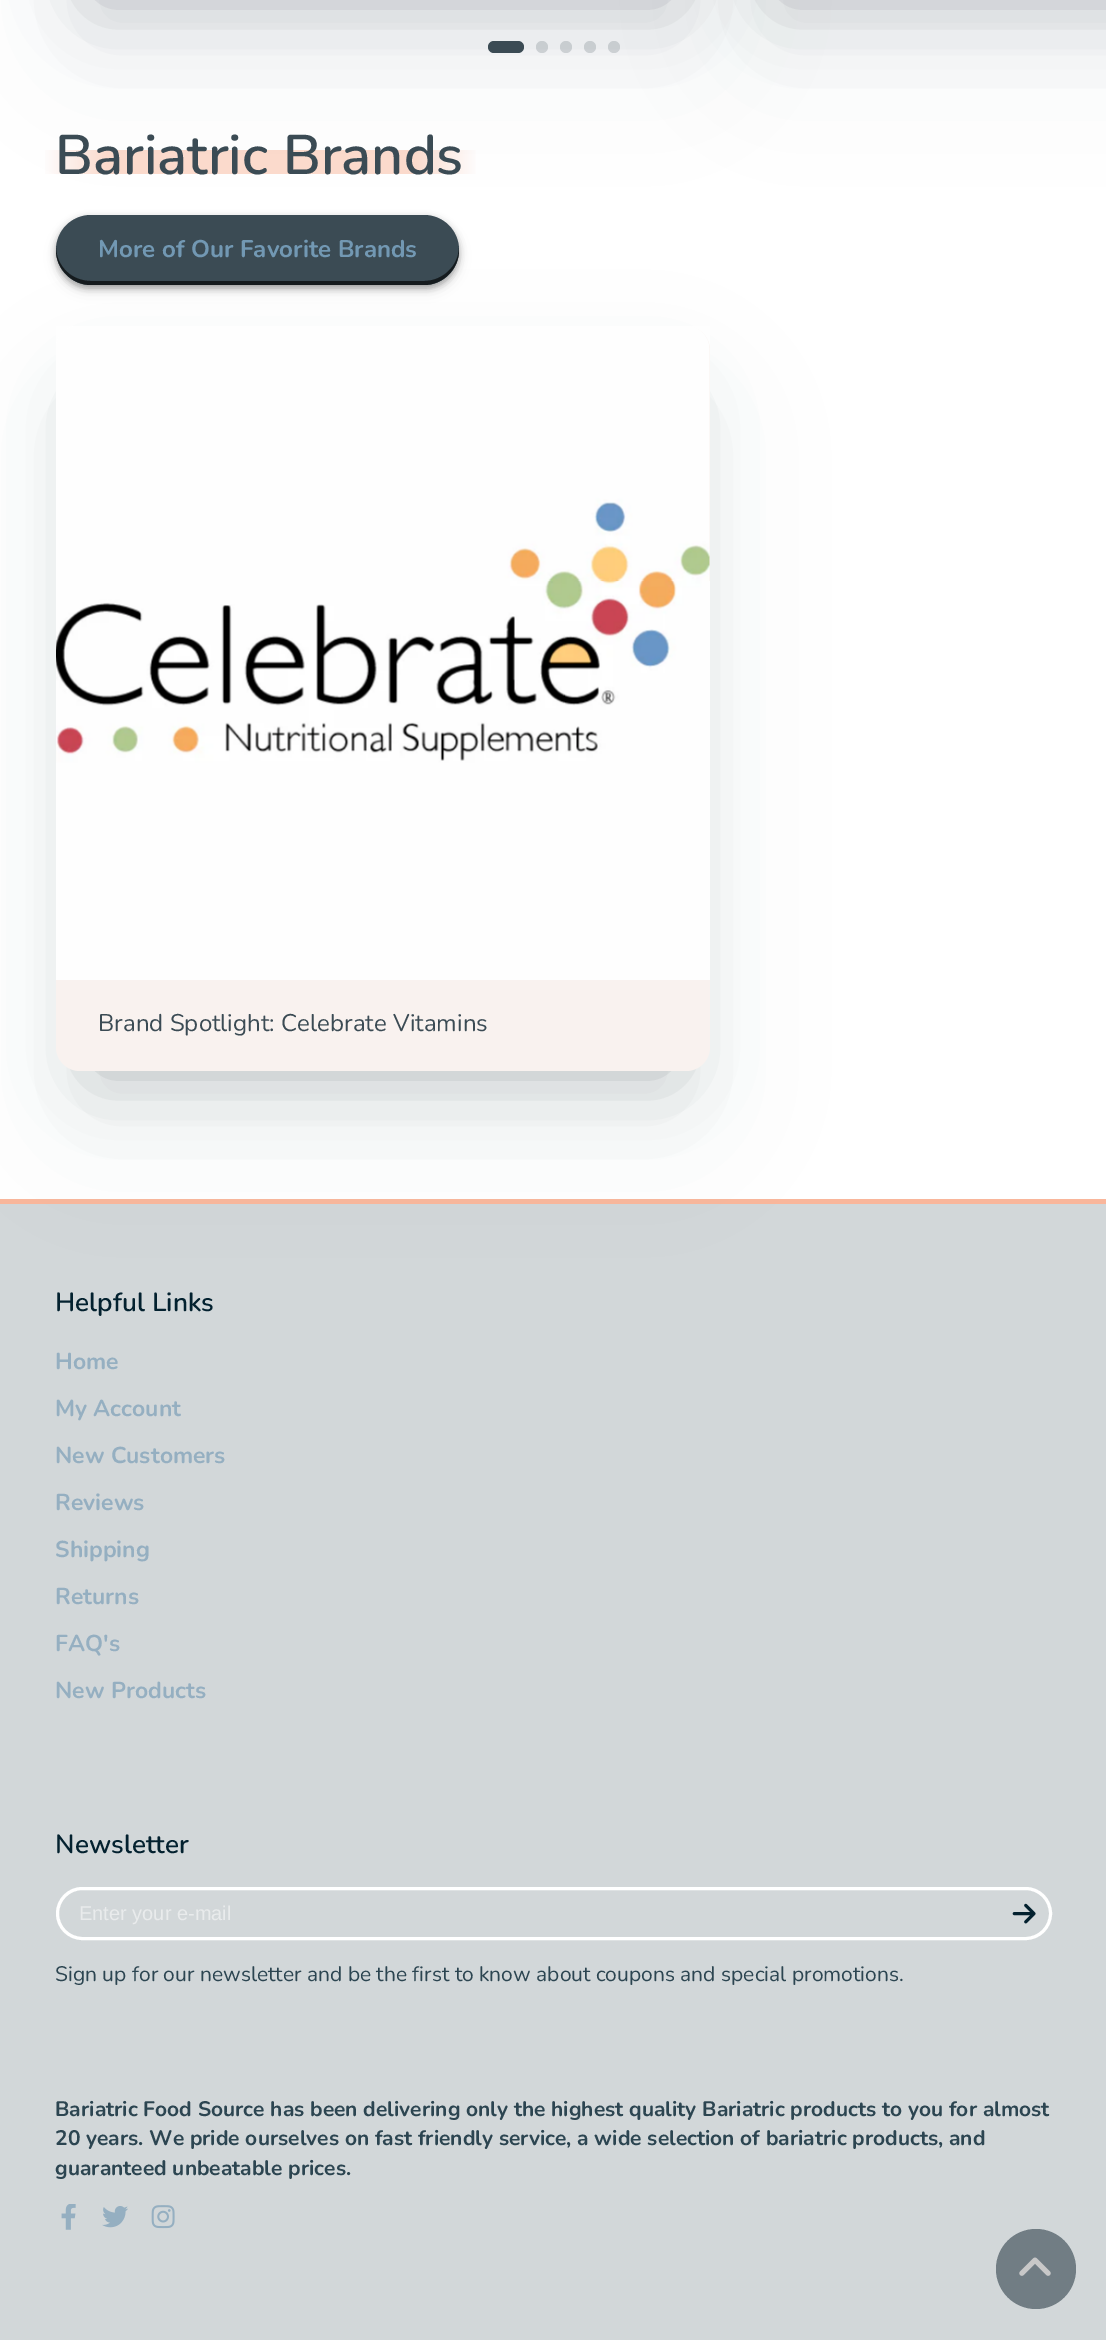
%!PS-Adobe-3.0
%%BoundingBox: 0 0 1106 2340
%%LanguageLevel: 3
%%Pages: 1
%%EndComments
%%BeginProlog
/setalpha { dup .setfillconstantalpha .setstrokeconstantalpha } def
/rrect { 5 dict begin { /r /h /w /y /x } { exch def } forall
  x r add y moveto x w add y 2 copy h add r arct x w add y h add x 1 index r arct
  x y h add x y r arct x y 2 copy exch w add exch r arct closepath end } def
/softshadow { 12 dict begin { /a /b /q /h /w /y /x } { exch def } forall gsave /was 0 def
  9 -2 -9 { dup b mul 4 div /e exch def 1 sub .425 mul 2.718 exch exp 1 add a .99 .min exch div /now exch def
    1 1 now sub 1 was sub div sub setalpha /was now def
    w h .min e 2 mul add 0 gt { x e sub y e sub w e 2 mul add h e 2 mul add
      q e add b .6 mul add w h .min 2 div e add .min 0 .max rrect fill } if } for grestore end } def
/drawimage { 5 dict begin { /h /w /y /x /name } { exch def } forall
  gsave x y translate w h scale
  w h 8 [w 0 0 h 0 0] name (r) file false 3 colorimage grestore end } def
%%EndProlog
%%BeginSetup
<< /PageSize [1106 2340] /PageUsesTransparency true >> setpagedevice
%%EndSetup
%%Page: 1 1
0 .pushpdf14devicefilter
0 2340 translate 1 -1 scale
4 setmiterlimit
1 setgray
0 0 1106 2340 rectfill
0.188 0.243 0.271 setrgbcolor
95 -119 576 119 0 39.5 0.3 softshadow
gsave newpath 45 150 moveto 476 150 lineto 476 174 lineto 45 174 lineto closepath clip newpath
<< /ShadingType 2 /ColorSpace /DeviceRGB /Coords [42 162 479 162] /Extend [true true] /Function << /FunctionType 3 /Domain [0 1] /Functions [<< /FunctionType 2 /Domain [0 1] /C0 [1 1 1] /C1 [0.988 0.859 0.804] /N 1 >> << /FunctionType 2 /Domain [0 1] /C0 [0.988 0.859 0.804] /C1 [0.988 0.859 0.804] /N 1 >> << /FunctionType 2 /Domain [0 1] /C0 [0.988 0.859 0.804] /C1 [1 1 1] /N 1 >>] /Bounds [0.15 0.85] /Encode [0 1 0 1 0 1] >> >> shfill grestore
83 -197 601 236 0 65.5 0.1 softshadow
779 -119 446 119 0 39.5 0.3 softshadow
767 -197 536 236 0 65.5 0.1 softshadow
0.231 0.294 0.329 setrgbcolor
488 41 36 12 6 rrect fill
0.2 setalpha
newpath 542 47 6 0 360 arc closepath fill
newpath 566 47 6 0 360 arc closepath fill
newpath 590 47 6 0 360 arc closepath fill
newpath 614 47 6 0 360 arc closepath fill
1 setalpha
0 setgray
59 225 397 63 31.5 7 0.15 softshadow
56 218 403 70 35 3.5 0.3 softshadow
0.824 0.843 0.851 setrgbcolor
0 1204 1106 1136 rectfill
0.976 0.714 0.608 setrgbcolor
0 1199 1106 5 rectfill
0.188 0.243 0.271 setrgbcolor
83 417 601 693 0 65.5 0.1 softshadow
0.231 0.294 0.329 setrgbcolor
56 215 403 70 35 rrect fill
0.082 0.106 0.118 setrgbcolor
newpath 56 248 moveto 56 250 lineto 56 269 72 285 91 285 curveto 424 285 lineto 443 285 459 269 459 250 curveto 459 248 lineto 458 267 442 281 424 281 curveto 91 281 lineto 72 281 57 267 56 248 curveto closepath fill
0.188 0.243 0.271 setrgbcolor
95 405 576 666 0 39.5 0.3 softshadow
0.976 0.949 0.937 setrgbcolor
56 326 654 745 24 rrect fill
(images/1.raw) 56 326 654 654 drawimage
1 setgray
3 setlinewidth
57.5 1888.5 993 50 25 rrect stroke
(images/2.raw) 1012 1903 24 21 drawimage
(images/3.raw) 61 2204 15 26 drawimage
(images/4.raw) 102 2206 26 22 drawimage
(images/5.raw) 151 2205 24 24 drawimage
0.443 0.49 0.518 setrgbcolor
newpath 1036 2269 40 0 360 arc closepath fill
(images/6.raw) 1019 2257 32 19 drawimage
/Nunito-SemiBold [55.75 0 0 -55.75 0 0] selectfont
0.231 0.294 0.329 setrgbcolor
55 174 moveto (Bariatric Brands) show
/Nunito-Bold [24.1 0 0 -24.1 0 0] selectfont
0.447 0.596 0.702 setrgbcolor
98 257 moveto (More of Our Favorite Brands) show
/Nunito-Regular [24.1 0 0 -24.1 0 0] selectfont
0.231 0.294 0.329 setrgbcolor
98 1031 moveto (Brand Spotlight: Celebrate Vitamins) show
/Nunito-SemiBold [26.25 0 0 -26.25 0 0] selectfont
0.012 0.129 0.184 setrgbcolor
55 1311 moveto (Helpful Links) show
/Nunito-Bold [23 0 0 -23 0 0] selectfont
0.584 0.686 0.757 setrgbcolor
55 1369 moveto (Home) show
55 1416 moveto (My Account) show
55 1463 moveto (New Customers) show
55 1510 moveto (Reviews) show
55 1557 moveto (Shipping) show
55 1604 moveto (Returns) show
55 1651 moveto (FAQ's) show
55 1698 moveto (New Products) show
/Nunito-SemiBold [26.25 0 0 -26.25 0 0] selectfont
0.012 0.129 0.184 setrgbcolor
55 1853 moveto (Newsletter) show
/LiberationSans-Regular [20 0 0 -20 0 0] selectfont
0.914 0.922 0.925 setrgbcolor
79 1920 moveto (Enter your e-mail) show
/Nunito-Regular [21 0 0 -21 0 0] selectfont
0.173 0.271 0.318 setrgbcolor
55 1981 moveto (Sign up for our newsletter and be the first to know about coupons and special promotions.) show
/Nunito-Bold [21 0 0 -21 0 0] selectfont
55 2116 moveto (Bariatric Food Source has been delivering only the highest quality Bariatric products to you for almost) show
55 2145 moveto (20 years. We pride ourselves on fast friendly service, a wide selection of bariatric products, and) show
55 2175 moveto (guaranteed unbeatable prices.) show
.poppdf14devicefilter showpage
%%EOF
